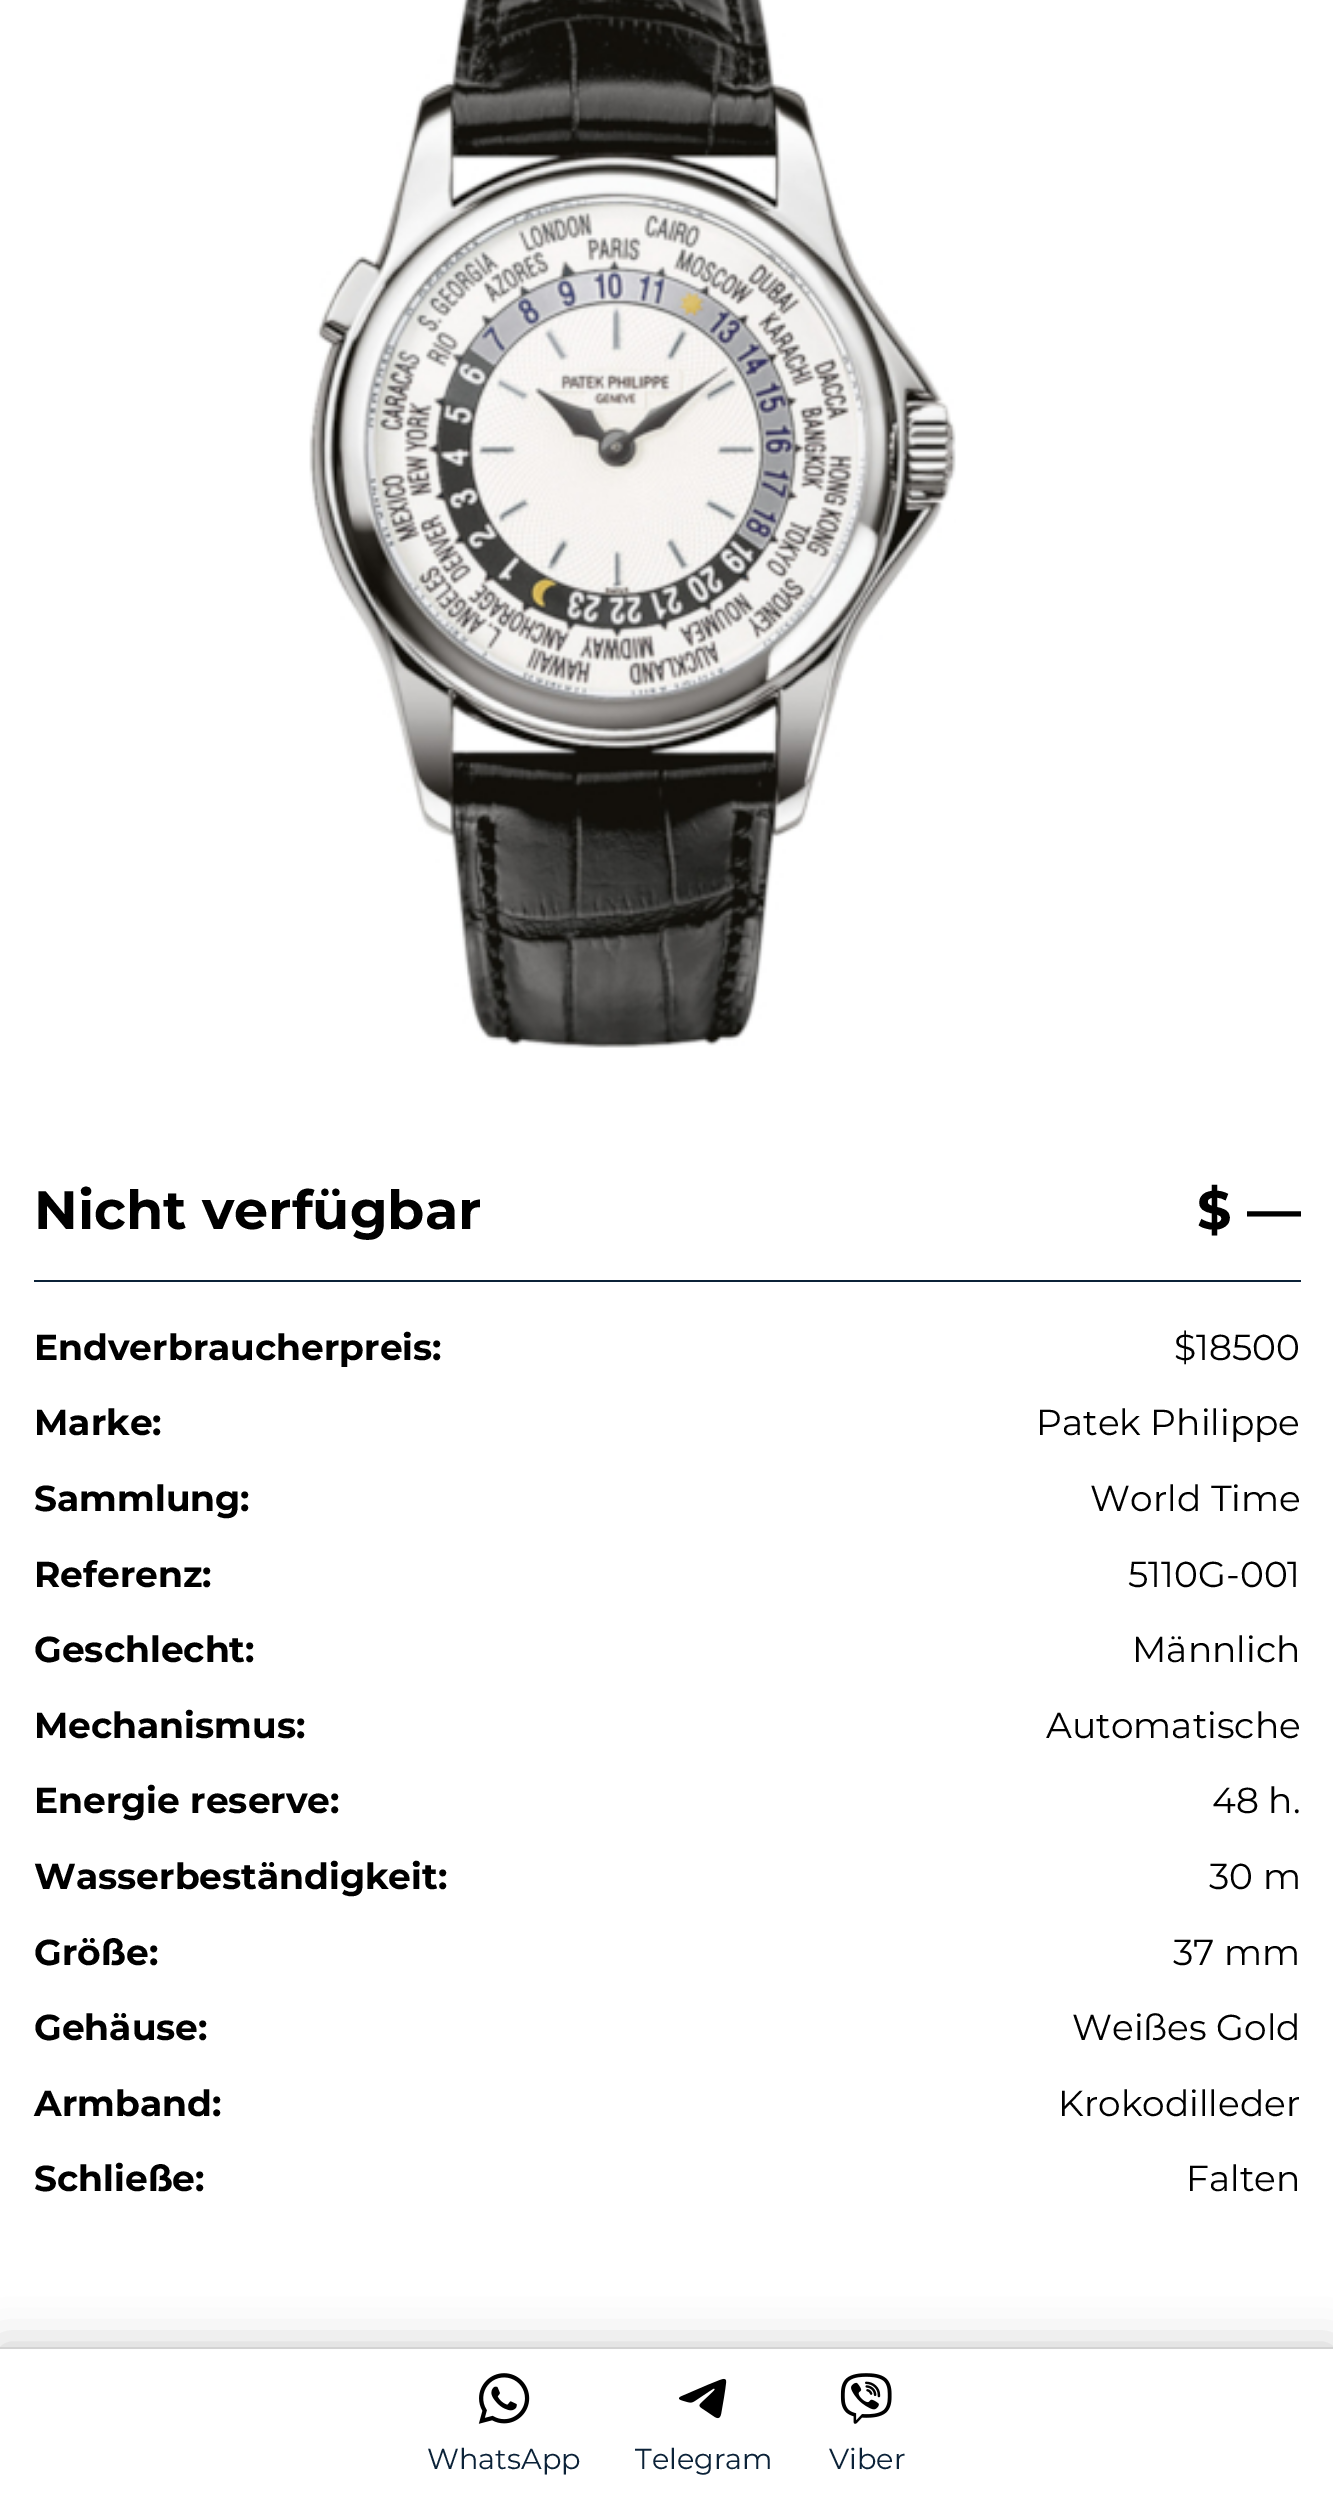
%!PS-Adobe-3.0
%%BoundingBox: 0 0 1333 2493
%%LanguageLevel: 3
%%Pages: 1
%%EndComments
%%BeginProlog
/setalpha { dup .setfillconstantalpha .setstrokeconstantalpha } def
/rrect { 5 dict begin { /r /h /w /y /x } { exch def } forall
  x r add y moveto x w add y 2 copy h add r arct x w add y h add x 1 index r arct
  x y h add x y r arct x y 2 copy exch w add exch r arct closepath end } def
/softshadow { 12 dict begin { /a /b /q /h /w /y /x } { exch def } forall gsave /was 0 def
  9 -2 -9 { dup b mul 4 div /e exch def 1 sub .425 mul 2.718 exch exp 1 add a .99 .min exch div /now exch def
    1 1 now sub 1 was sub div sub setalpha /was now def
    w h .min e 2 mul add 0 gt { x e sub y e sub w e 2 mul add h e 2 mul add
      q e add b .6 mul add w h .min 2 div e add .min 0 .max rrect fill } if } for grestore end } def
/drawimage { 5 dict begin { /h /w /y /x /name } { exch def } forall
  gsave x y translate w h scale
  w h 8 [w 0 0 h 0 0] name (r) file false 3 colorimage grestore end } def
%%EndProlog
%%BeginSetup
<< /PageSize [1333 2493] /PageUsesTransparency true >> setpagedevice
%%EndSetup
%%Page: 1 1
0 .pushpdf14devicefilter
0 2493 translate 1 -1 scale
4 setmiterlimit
1 setgray
0 0 1333 2493 rectfill
(images/1.raw) 309 0 647 1048 drawimage
0.043 0.133 0.22 setrgbcolor
34 1280 1267 2 rectfill
0 setgray
0 2347 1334 146 0 22.5 0.2 softshadow
1 setgray
0 2349 1333 144 rectfill
0.827 setgray
0 2347 1333 2 rectfill
(images/2.raw) 478 2373 52 51 drawimage
(images/3.raw) 679 2378 48 41 drawimage
(images/4.raw) 840 2373 52 51 drawimage
/Montserrat-Bold [54 0 0 -54 0 0] selectfont
0 setgray
34 1229 moveto (Nicht verfügbar) show
1197 1229 moveto ($ —) show
/Montserrat-Bold [36 0 0 -36 0 0] selectfont
34 1360 moveto (Endverbraucherpreis:) show
/Montserrat-Regular [36 0 0 -36 0 0] selectfont
1174 1360 moveto ($18500) show
/Montserrat-Bold [36 0 0 -36 0 0] selectfont
34 1435 moveto (Marke:) show
/Montserrat-Regular [36 0 0 -36 0 0] selectfont
1036 1435 moveto (Patek Philippe) show
/Montserrat-Bold [36 0 0 -36 0 0] selectfont
34 1511 moveto (Sammlung:) show
/Montserrat-Regular [36 0 0 -36 0 0] selectfont
1090 1511 moveto (World Time) show
/Montserrat-Bold [36 0 0 -36 0 0] selectfont
34 1587 moveto (Referenz:) show
/Montserrat-Regular [36 0 0 -36 0 0] selectfont
1128 1587 moveto (5110G-001) show
/Montserrat-Bold [36 0 0 -36 0 0] selectfont
34 1662 moveto (Geschlecht:) show
/Montserrat-Regular [36 0 0 -36 0 0] selectfont
1132 1662 moveto (Männlich) show
/Montserrat-Bold [36 0 0 -36 0 0] selectfont
34 1738 moveto (Mechanismus:) show
/Montserrat-Regular [36 0 0 -36 0 0] selectfont
1046 1738 moveto (Automatische) show
/Montserrat-Bold [36 0 0 -36 0 0] selectfont
34 1813 moveto (Energie reserve:) show
/Montserrat-Regular [36 0 0 -36 0 0] selectfont
1212 1813 moveto (48 h.) show
/Montserrat-Bold [36 0 0 -36 0 0] selectfont
34 1889 moveto (Wasserbeständigkeit:) show
/Montserrat-Regular [36 0 0 -36 0 0] selectfont
1209 1889 moveto (30 m) show
/Montserrat-Bold [36 0 0 -36 0 0] selectfont
34 1965 moveto (Größe:) show
/Montserrat-Regular [36 0 0 -36 0 0] selectfont
1173 1965 moveto (37 mm) show
/Montserrat-Bold [36 0 0 -36 0 0] selectfont
34 2040 moveto (Gehäuse:) show
/Montserrat-Regular [36 0 0 -36 0 0] selectfont
1072 2040 moveto (Weißes Gold) show
/Montserrat-Bold [36 0 0 -36 0 0] selectfont
34 2116 moveto (Armband:) show
/Montserrat-Regular [36 0 0 -36 0 0] selectfont
1058 2116 moveto (Krokodilleder) show
/Montserrat-Bold [36 0 0 -36 0 0] selectfont
34 2191 moveto (Schließe:) show
/Montserrat-Regular [36 0 0 -36 0 0] selectfont
1186 2191 moveto (Falten) show
/Montserrat-Regular [28.75 0 0 -28.75 0 0] selectfont
0.043 0.133 0.22 setrgbcolor
427 2469 moveto (WhatsApp) show
635 2469 moveto (Telegram) show
829 2469 moveto (Viber) show
.poppdf14devicefilter showpage
%%EOF
